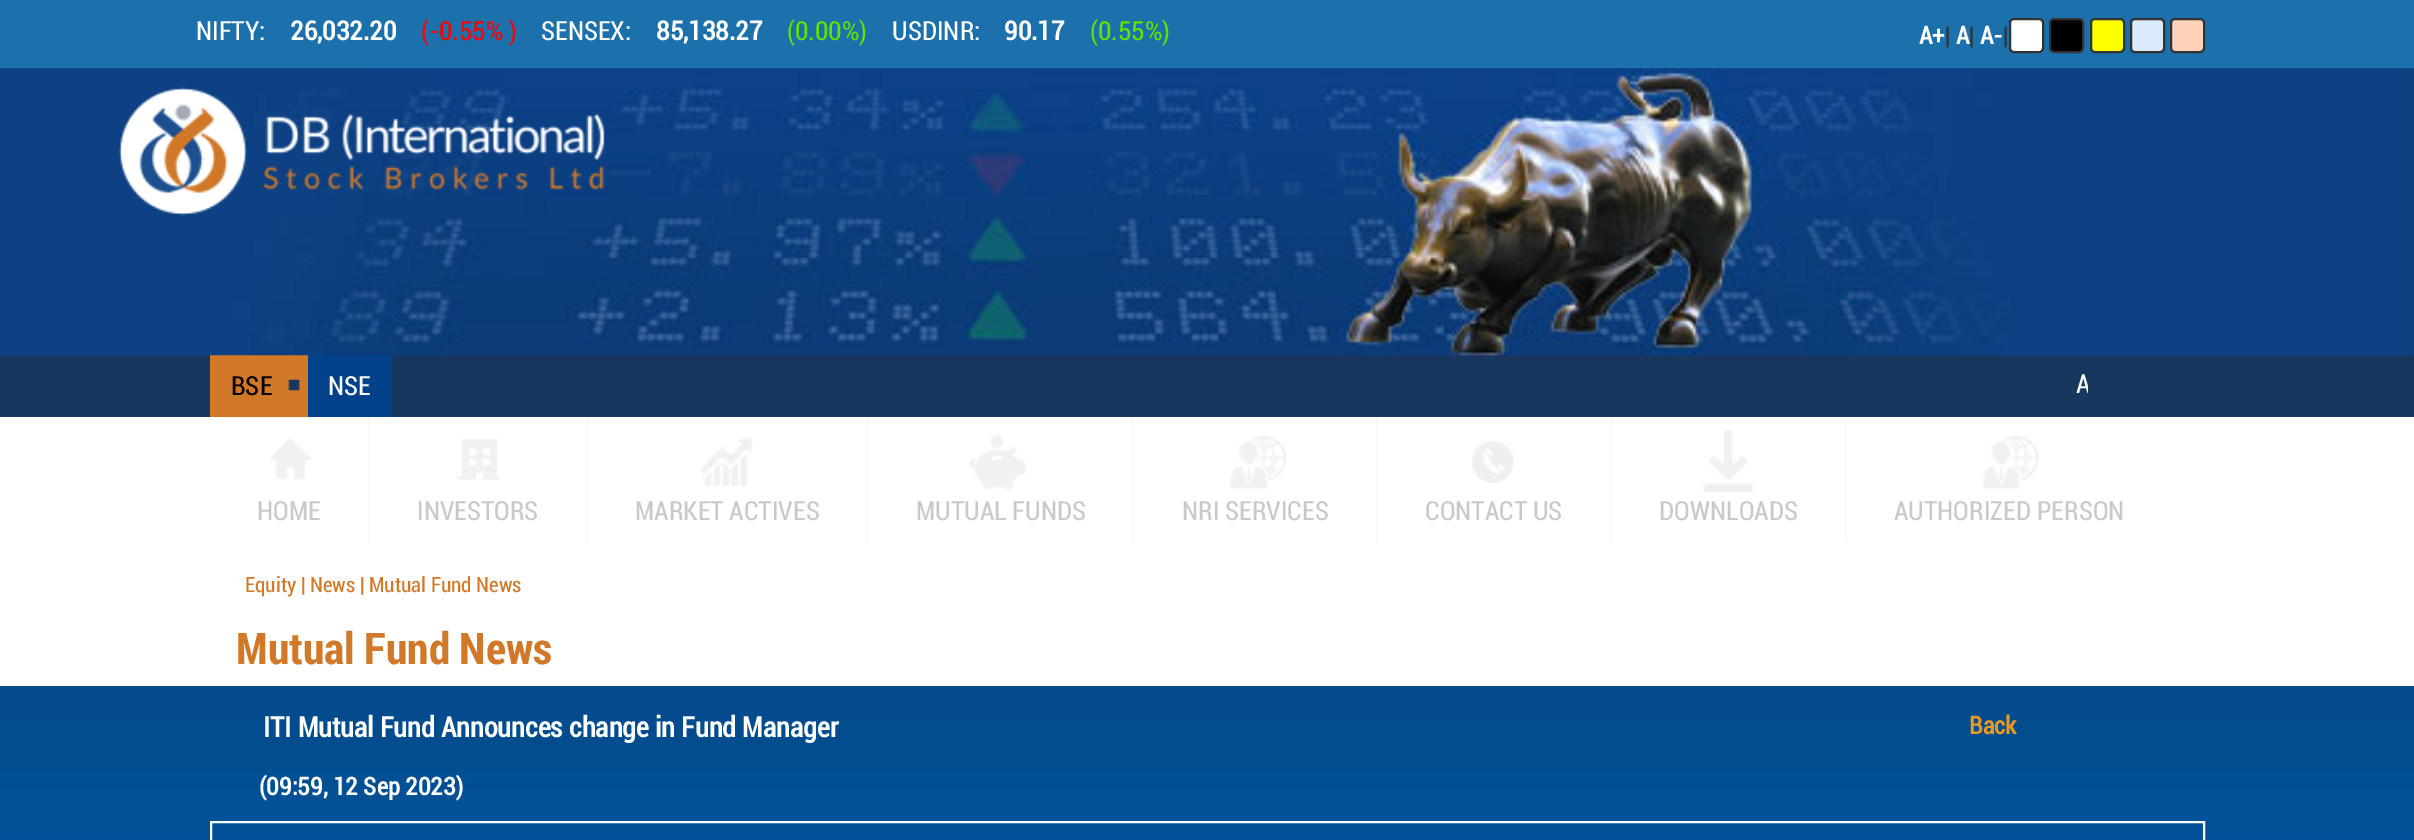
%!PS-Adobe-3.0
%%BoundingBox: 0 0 2414 840
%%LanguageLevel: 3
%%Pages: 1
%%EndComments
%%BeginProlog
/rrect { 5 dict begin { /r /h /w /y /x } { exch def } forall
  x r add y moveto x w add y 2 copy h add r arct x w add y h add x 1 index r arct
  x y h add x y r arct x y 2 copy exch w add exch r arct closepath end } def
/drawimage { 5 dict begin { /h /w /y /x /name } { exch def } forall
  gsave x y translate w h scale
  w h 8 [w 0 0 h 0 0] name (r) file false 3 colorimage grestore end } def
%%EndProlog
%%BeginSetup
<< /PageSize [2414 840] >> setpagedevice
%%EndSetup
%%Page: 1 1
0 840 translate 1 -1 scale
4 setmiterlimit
1 setgray
0 0 2414 840 rectfill
0.11 0.443 0.675 setrgbcolor
0 0 2414 68 rectfill
1 setgray
2010 19 33 33 4 rrect gsave fill grestore
0.2 setgray
2 setlinewidth
stroke
0 setgray
2050 19 33 33 4 rrect gsave fill grestore
0.2 setgray
stroke
1 1 0 setrgbcolor
2091 19 33 33 4 rrect gsave fill grestore
0.2 setgray
stroke
0.855 0.922 1 setrgbcolor
2131 19 33 33 4 rrect gsave fill grestore
0.2 setgray
stroke
1 0.82 0.725 setrgbcolor
2171 19 33 33 4 rrect gsave fill grestore
0.2 setgray
stroke
0.094 0.216 0.373 setrgbcolor
0 355 2414 62 rectfill
0.82 0.475 0.157 setrgbcolor
210 355 98 62 rectfill
0.012 0.259 0.541 setrgbcolor
308 355 84 62 rectfill
(images/1.raw) 0 68 2414 288 drawimage
(images/2.raw) 118 87 487 129 drawimage
(images/3.raw) 288 379 12 12 drawimage
0.976 setgray
368 417 2 126 rectfill
(images/4.raw) 269 438 43 42 drawimage
586 417 2 126 rectfill
(images/5.raw) 456 439 45 41 drawimage
866 417 2 126 rectfill
(images/6.raw) 700 437 53 50 drawimage
1132 417 2 126 rectfill
(images/7.raw) 969 435 57 55 drawimage
1376 417 2 126 rectfill
(images/8.raw) 1230 435 56 54 drawimage
1610 417 2 126 rectfill
(images/9.raw) 1472 441 42 42 drawimage
1845 417 2 126 rectfill
(images/10.raw) 1703 430 51 62 drawimage
(images/11.raw) 1982 435 57 54 drawimage
gsave newpath 0 686 moveto 2414 686 lineto 2414 840 lineto 0 840 lineto closepath clip newpath
<< /ShadingType 2 /ColorSpace /DeviceRGB /Coords [1208 686 1208 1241] /Extend [true true] /Function << /FunctionType 2 /Domain [0 1] /C0 [0.012 0.29 0.541] /C1 [0.016 0.412 0.773] /N 1 >> >> shfill grestore
1 setgray
211 822 1993 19 rectstroke
/Roboto-Regular [26.25 0 0 -26.25 0 0] selectfont
196 40 moveto (NIFTY:) show
/Roboto-Bold [26.25 0 0 -26.25 0 0] selectfont
290 40 moveto (26,032.20) show
/Roboto-Regular [26.25 0 0 -26.25 0 0] selectfont
0.988 0.004 0.008 setrgbcolor
421 40 moveto (\(-0.55% \)) show
1 setgray
541 40 moveto (SENSEX:) show
/Roboto-Bold [26.25 0 0 -26.25 0 0] selectfont
656 40 moveto (85,138.27) show
/Roboto-Regular [26.25 0 0 -26.25 0 0] selectfont
0.376 0.89 0 setrgbcolor
787 40 moveto (\(0.00%\)) show
1 setgray
892 40 moveto (USDINR:) show
/Roboto-Bold [26.25 0 0 -26.25 0 0] selectfont
1004 40 moveto (90.17) show
/Roboto-Regular [26.25 0 0 -26.25 0 0] selectfont
0.376 0.89 0 setrgbcolor
1090 40 moveto (\(0.55%\)) show
/Roboto-Bold [24.5 0 0 -24.5 0 0] selectfont
1 setgray
1919 44 moveto (A+) show
/Roboto-Regular [24.5 0 0 -24.5 0 0] selectfont
0.2 setgray
1945 44 moveto (|) show
/Roboto-Bold [24.5 0 0 -24.5 0 0] selectfont
1 setgray
1956 44 moveto (A) show
/Roboto-Regular [24.5 0 0 -24.5 0 0] selectfont
0.2 setgray
1969 44 moveto (|) show
/Roboto-Bold [24.5 0 0 -24.5 0 0] selectfont
1 setgray
1980 44 moveto (A-) show
/Roboto-Regular [24.5 0 0 -24.5 0 0] selectfont
0.2 setgray
2003 44 moveto (|) show
/Roboto-Regular [26.25 0 0 -26.25 0 0] selectfont
0 setgray
231 395 moveto (BSE) show
1 setgray
328 395 moveto (NSE) show
gsave
2056 355 32 58 rectclip
2076 393 moveto (A) show
grestore
0.788 setgray
257 520 moveto (HOME) show
417 520 moveto (INVESTORS) show
635 520 moveto (MARKET ACTIVES) show
916 520 moveto (MUTUAL FUNDS) show
1182 520 moveto (NRI SERVICES) show
1425 520 moveto (CONTACT US) show
1659 520 moveto (DOWNLOADS) show
1894 520 moveto (AUTHORIZED PERSON) show
/Roboto-Regular [21 0 0 -21 0 0] selectfont
0.82 0.475 0.157 setrgbcolor
245 592 moveto (Equity | News | Mutual Fund News) show
/RobotoCondensed-Bold [43.75 0 0 -43.75 0 0] selectfont
236 664 moveto (Mutual Fund News) show
/Roboto-Bold [28 0 0 -28 0 0] selectfont
1 setgray
263 737 moveto (ITI Mutual Fund Announces change in Fund Manager) show
/Roboto-Bold [24.5 0 0 -24.5 0 0] selectfont
0.918 0.604 0.137 setrgbcolor
1969 734 moveto (Back) show
1 setgray
259 795 moveto (\(09:59, 12 Sep 2023\)) show
showpage
%%EOF
